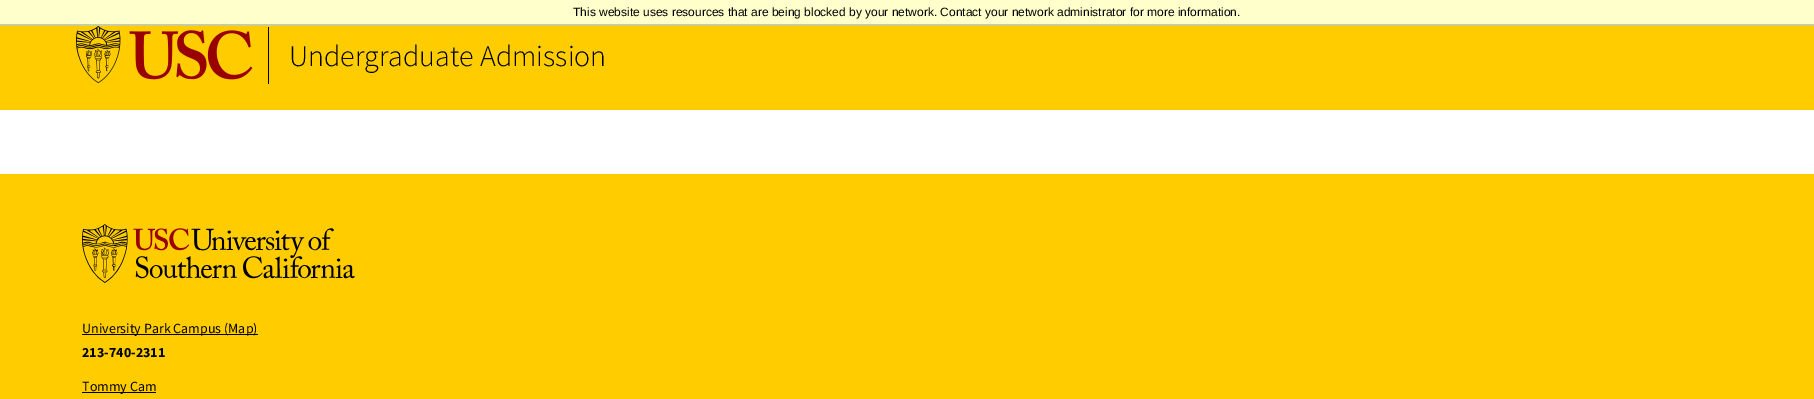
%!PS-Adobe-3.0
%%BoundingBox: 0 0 1814 399
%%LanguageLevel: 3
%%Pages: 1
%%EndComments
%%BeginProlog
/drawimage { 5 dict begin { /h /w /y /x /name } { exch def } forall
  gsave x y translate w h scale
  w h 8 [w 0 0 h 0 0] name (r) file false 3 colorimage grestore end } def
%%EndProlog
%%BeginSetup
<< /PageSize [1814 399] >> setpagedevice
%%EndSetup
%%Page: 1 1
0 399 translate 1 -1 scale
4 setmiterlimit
1 setgray
0 0 1814 399 rectfill
1 1 0.8 setrgbcolor
0 0 1814 24 rectfill
0.8 0.8 0.6 setrgbcolor
0 24 1814 2 rectfill
1 0.8 0 setrgbcolor
0 26 1814 84 rectfill
(images/1.raw) 76 26 177 58 drawimage
0 setgray
268 27 1 57 rectfill
1 0.8 0 setrgbcolor
0 174 1814 225 rectfill
(images/2.raw) 82 224 273 59 drawimage
0 setgray
82 334 176 1 rectfill
82 392 74 1 rectfill
/LiberationSans-Regular [12 0 0 -12 0 0] selectfont
573 16 moveto (This website uses resources that are being blocked by your network. Contact your network administrator for more information.) show
/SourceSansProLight-Light [30 0 0 -30 0 0] selectfont
289 66 moveto (Undergraduate Admission) show
/SourceSansPro-Regular [14 0 0 -14 0 0] selectfont
82 333 moveto (University Park Campus \(Map\)) show
/SourceSansPro-Bold [14 0 0 -14 0 0] selectfont
82 357 moveto (213-740-2311) show
/SourceSansPro-Regular [14 0 0 -14 0 0] selectfont
82 391 moveto (Tommy Cam) show
showpage
%%EOF
